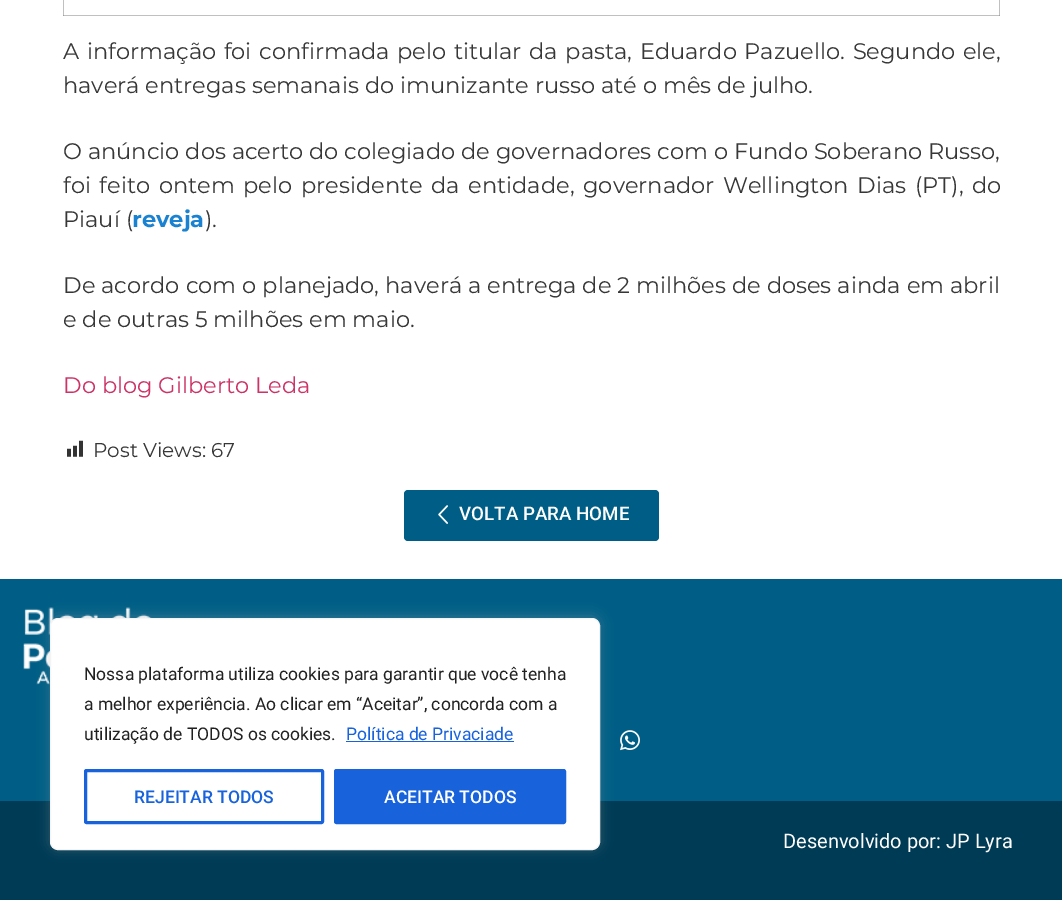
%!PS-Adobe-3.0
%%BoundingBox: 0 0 1062 900
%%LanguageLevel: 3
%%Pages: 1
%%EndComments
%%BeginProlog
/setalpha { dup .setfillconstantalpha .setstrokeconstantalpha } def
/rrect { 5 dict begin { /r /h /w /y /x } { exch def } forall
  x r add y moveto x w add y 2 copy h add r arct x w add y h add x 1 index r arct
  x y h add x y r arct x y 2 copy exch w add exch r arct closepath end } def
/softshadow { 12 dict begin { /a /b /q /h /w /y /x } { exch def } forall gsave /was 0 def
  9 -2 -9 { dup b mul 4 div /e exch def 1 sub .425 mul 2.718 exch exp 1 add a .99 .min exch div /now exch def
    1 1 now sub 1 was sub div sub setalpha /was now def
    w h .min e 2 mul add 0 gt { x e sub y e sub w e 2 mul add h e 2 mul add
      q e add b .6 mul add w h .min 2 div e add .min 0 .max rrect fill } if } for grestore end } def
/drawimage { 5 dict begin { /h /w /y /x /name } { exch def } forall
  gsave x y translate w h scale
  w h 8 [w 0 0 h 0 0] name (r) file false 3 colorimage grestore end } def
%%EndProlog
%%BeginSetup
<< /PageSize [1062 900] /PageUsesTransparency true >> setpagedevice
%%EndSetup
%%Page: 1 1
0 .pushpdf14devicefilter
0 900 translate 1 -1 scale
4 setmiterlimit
1 setgray
0 0 1062 900 rectfill
0.753 setgray
63 0 1 16 rectfill
63 15 937 1 rectfill
0.627 setgray
63 15 1 1 rectfill
0.753 setgray
999 0 1 16 rectfill
0.627 setgray
999 15 1 1 rectfill
(images/1.raw) 67 440 16 17 drawimage
0 0.369 0.525 setrgbcolor
404 490 255 51 4 rrect fill
(images/2.raw) 438 505 10 19 drawimage
0 579 1062 222 rectfill
(images/3.raw) 23 607 129 78 drawimage
0 0.231 0.333 setrgbcolor
0 801 1062 99 rectfill
0.675 0.671 0.671 setrgbcolor
50 616 550 233 8 6 0.3 softshadow
1 setgray
50.5 618.5 549 231 7.5 rrect gsave fill grestore
0.957 setgray
stroke
0.094 0.388 0.863 setrgbcolor
346 741 168 1 rectfill
3 setlinewidth
85.5 770.5 237 52 1 rrect stroke
335.5 770.5 229 52 1 rrect gsave fill grestore
stroke
(images/4.raw) 620 730 20 21 drawimage
/Montserrat-Regular [22.5 0 0 -22.5 0 0] selectfont
0.216 setgray
63 59 moveto 1.75 0 32 (A informação foi confirmada pelo titular da pasta, Eduardo Pazuello. Segundo ele,) widthshow
63 93 moveto (haverá entregas semanais do imunizante russo até o mês de julho.) show
63 159 moveto (O anúncio dos acerto do colegiado de governadores com o Fundo Soberano Russo,) show
63 193 moveto 2.75 0 32 (foi feito ontem pelo presidente da entidade, governador Wellington Dias \(PT\), do) widthshow
63 227 moveto (Piauí \() show
/Montserrat-Bold [22.5 0 0 -22.5 0 0] selectfont
0.098 0.51 0.82 setrgbcolor
132 227 moveto (reveja) show
/Montserrat-Regular [22.5 0 0 -22.5 0 0] selectfont
0.216 setgray
205 227 moveto (\).) show
63 293 moveto 0.1 0 32 (De acordo com o planejado, haverá a entrega de 2 milhões de doses ainda em abril) widthshow
63 327 moveto (e de outras 5 milhões em maio.) show
0.8 0.2 0.4 setrgbcolor
63 393 moveto (Do blog Gilberto Leda) show
/Montserrat-Regular [20 0 0 -20 0 0] selectfont
0.216 setgray
93 457 moveto (Post Views: 67) show
/Roboto-Medium [18.75 0 0 -18.75 0 0] selectfont
1 setgray
459 520 moveto (VOLTA PARA HOME) show
/Roboto-Regular [17.5 0 0 -17.5 0 0] selectfont
0.129 setgray
84 680 moveto (Nossa plataforma utiliza cookies para garantir que você tenha) show
84 710 moveto (a melhor experiência. Ao clicar em “Aceitar”, concorda com a) show
84 740 moveto (utilização de TODOS os cookies.) show
0.094 0.388 0.863 setrgbcolor
346 740 moveto (Política de Privaciade) show
/Roboto-Medium [17.5 0 0 -17.5 0 0] selectfont
134 803 moveto (REJEITAR TODOS) show
1 setgray
384 803 moveto (ACEITAR TODOS) show
/Roboto-Regular [20 0 0 -20 0 0] selectfont
783 848 moveto (Desenvolvido por: JP Lyra) show
.poppdf14devicefilter showpage
%%EOF
